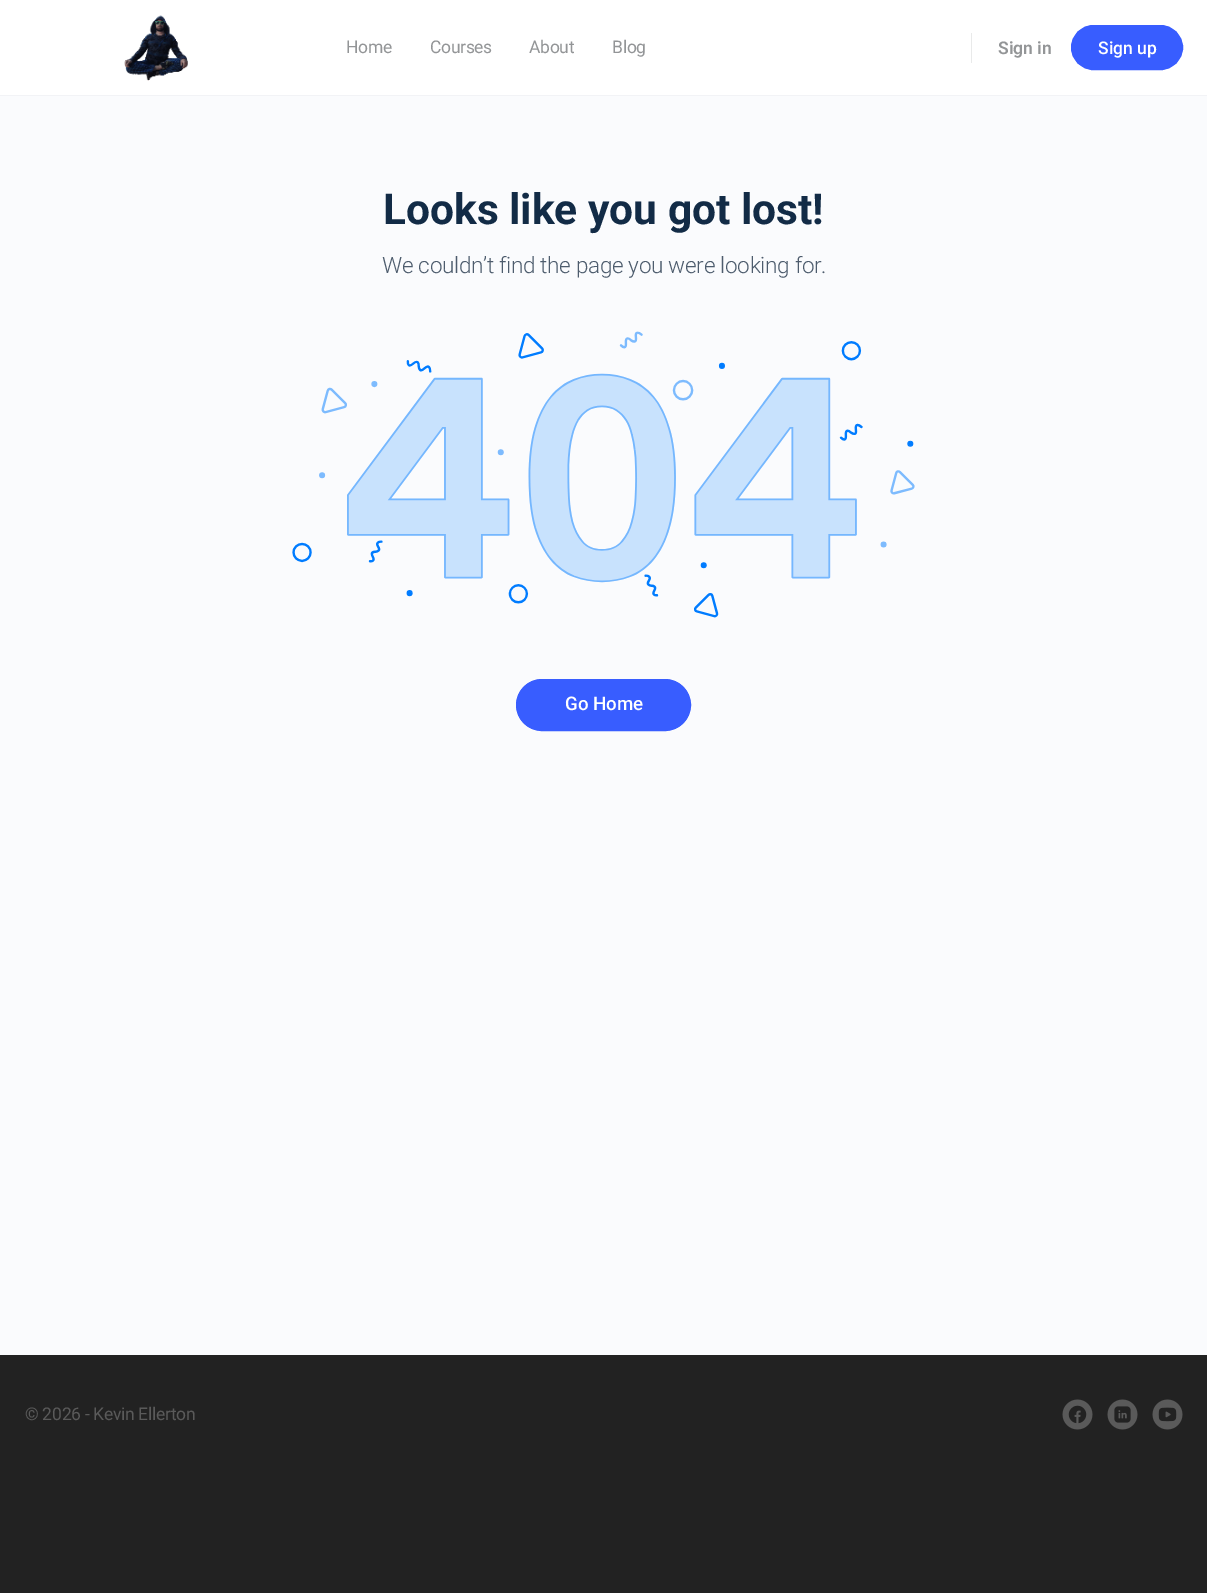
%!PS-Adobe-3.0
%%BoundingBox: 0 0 1207 1593
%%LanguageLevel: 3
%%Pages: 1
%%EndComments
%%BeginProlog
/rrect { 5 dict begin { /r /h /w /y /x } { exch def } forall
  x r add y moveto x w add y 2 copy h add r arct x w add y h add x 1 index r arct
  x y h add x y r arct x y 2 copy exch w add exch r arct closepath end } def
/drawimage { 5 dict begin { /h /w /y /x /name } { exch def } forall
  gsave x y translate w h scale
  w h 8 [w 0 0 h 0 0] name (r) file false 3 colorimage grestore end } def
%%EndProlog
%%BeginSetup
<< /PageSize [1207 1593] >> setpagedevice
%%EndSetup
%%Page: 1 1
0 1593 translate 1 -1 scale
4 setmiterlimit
0.98 0.984 0.992 setrgbcolor
0 0 1207 1593 rectfill
0.949 0.953 0.965 setrgbcolor
newpath 0 95 moveto 0 96 lineto 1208 96 lineto 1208 1 lineto 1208 95 lineto closepath fill
1 setgray
0 0 1207 95 rectfill
(images/1.raw) 124 15 64 66 drawimage
0.914 0.918 0.918 setrgbcolor
971 33 1 30 rectfill
0.22 0.365 1 setrgbcolor
1071.5 25.5 111 44 22 rrect gsave fill grestore
stroke
(images/2.raw) 292 331 623 287 drawimage
516.5 679.5 174 51 25.5 rrect gsave fill grestore
stroke
0.133 setgray
0 1355 1207 238 rectfill
(images/3.raw) 1062 1399 31 31 drawimage
(images/4.raw) 1107 1399 31 31 drawimage
(images/5.raw) 1152 1399 31 31 drawimage
/Roboto-Regular [17.5 0 0 -17.5 0 0] selectfont
0.576 0.584 0.592 setrgbcolor
346 53 moveto -0.3 0 (Home) ashow
430 53 moveto -0.3 0 (Courses) ashow
529 53 moveto -0.3 0 (About) ashow
612 53 moveto -0.3 0 (Blog) ashow
/Roboto-SemiBold [17.5 0 0 -17.5 0 0] selectfont
998 54 moveto (Sign in) show
/Roboto-Medium [17.5 0 0 -17.5 0 0] selectfont
1 setgray
1098 54 moveto (Sign up) show
/Roboto-Bold [42.5 0 0 -42.5 0 0] selectfont
0.071 0.169 0.275 setrgbcolor
383 224 moveto (Looks like you got lost!) show
/Roboto-Light [22.5 0 0 -22.5 0 0] selectfont
0.302 0.361 0.427 setrgbcolor
382 273 moveto -0.3 0 (We couldn’t find the page you were looking for.) ashow
/Roboto-Medium [18.75 0 0 -18.75 0 0] selectfont
1 setgray
565 710 moveto (Go Home) show
/Roboto-Regular [17.5 0 0 -17.5 0 0] selectfont
0.353 setgray
25 1420 moveto -0.3 0 (© 2026 - Kevin Ellerton) ashow
showpage
%%EOF
